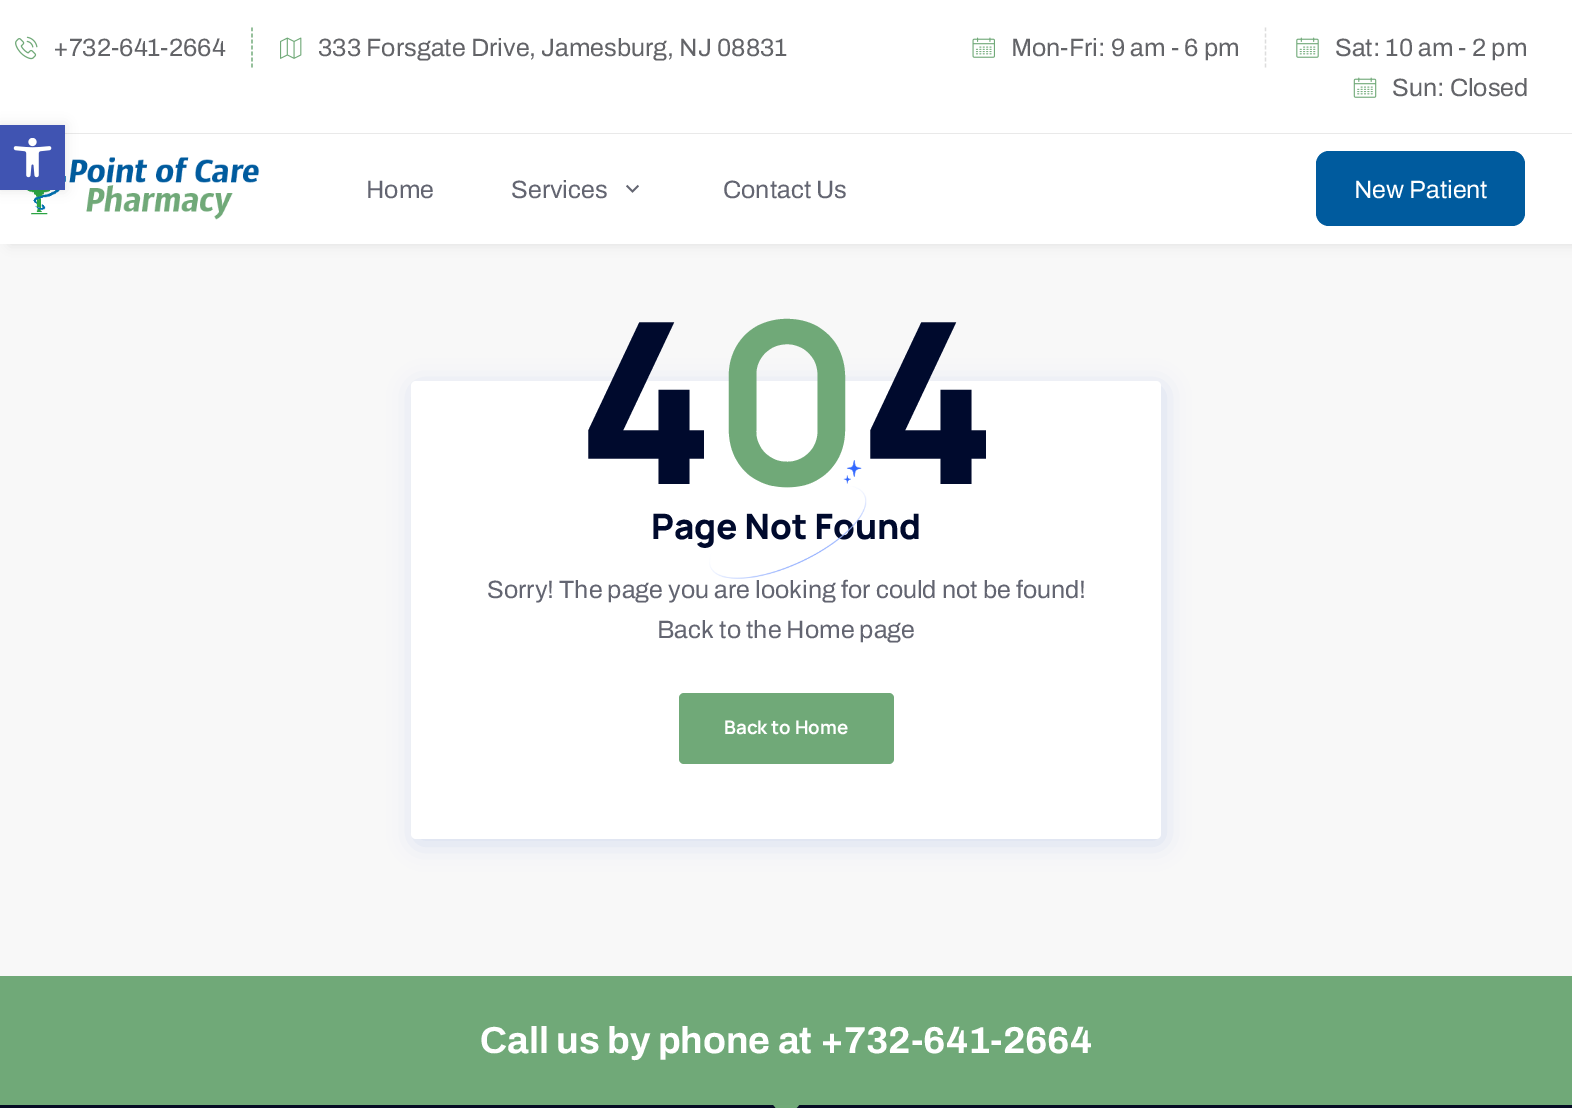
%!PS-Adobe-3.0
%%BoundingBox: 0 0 1572 1108
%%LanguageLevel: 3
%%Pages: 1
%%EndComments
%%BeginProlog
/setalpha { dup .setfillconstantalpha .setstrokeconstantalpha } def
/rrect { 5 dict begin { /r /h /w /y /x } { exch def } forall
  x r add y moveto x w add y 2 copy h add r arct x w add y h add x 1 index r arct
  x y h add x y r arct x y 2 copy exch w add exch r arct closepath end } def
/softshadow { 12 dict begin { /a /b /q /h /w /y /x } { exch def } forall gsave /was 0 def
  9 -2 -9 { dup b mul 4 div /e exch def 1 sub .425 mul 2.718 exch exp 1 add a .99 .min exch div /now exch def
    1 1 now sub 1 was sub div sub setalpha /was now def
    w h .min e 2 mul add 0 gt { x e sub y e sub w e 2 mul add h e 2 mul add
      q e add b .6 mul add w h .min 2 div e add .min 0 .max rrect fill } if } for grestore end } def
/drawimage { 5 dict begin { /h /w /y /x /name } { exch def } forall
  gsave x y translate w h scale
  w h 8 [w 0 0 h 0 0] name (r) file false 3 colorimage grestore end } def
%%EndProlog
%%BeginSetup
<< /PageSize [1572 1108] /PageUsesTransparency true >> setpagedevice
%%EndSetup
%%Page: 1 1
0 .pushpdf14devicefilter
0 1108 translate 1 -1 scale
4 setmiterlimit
0.973 setgray
0 0 1572 1108 rectfill
0 setgray
10 134 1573 110 0 6 0.1 softshadow
1 setgray
0 0 1572 133 rectfill
0.914 setgray
65 133 1507 1 rectfill
1 setgray
0 134 1572 110 rectfill
(images/7.raw) 26 157 234 63 drawimage
0 setgray
0 125 65 65 0 6 0.1 softshadow
0.251 0.329 0.698 setrgbcolor
0 125 65 65 rectfill
(images/1.raw) 13 138 39 40 drawimage
(images/2.raw) 15 36 23 24 drawimage
0.439 0.663 0.471 setrgbcolor
1.2 setlinewidth
[3.75 2.29] 0 setdash
newpath 252 27.5 moveto 252 67.5 lineto stroke
(images/3.raw) 280 37 22 22 drawimage
(images/4.raw) 972 37 23 21 drawimage
0.867 setgray
newpath 1265.5 27.5 moveto 1265.5 67.5 lineto stroke
(images/5.raw) 1296 37 23 21 drawimage
(images/6.raw) 1353 77 24 21 drawimage
(images/8.raw) 626 184 13 9 drawimage
0 0.357 0.62 setrgbcolor
1316 151 209 75 13 rrect fill
0 0.235 0.702 setrgbcolor
414 386 750 458 5 12.5 0.13 softshadow
1 setgray
411 381 750 458 5 rrect fill
0.439 0.663 0.471 setrgbcolor
679 693 215 71 5 rrect fill
0 976 1572 129 rectfill
0.024 0.047 0.145 setrgbcolor
0 1105 1572 3 rectfill
0.439 0.663 0.471 setrgbcolor
newpath 786 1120 moveto 772.5 1104 lineto 800 1104 lineto closepath fill
/Archivo-Regular [25 0 0 -25 0 0] selectfont
0.388 0.392 0.408 setrgbcolor
53 56 moveto (+732-641-2664) show
318 56 moveto (333 Forsgate Drive, Jamesburg, NJ 08831) show
1011 56 moveto (Mon-Fri: 9 am - 6 pm) show
1335 56 moveto (Sat: 10 am - 2 pm) show
1392 96 moveto (Sun: Closed) show
0.388 0.396 0.443 setrgbcolor
366 198 moveto (Home) show
511 198 moveto (Services) show
723 198 moveto (Contact Us) show
1 setgray
1354 198 moveto (New Patient) show
/Manrope-ExtraBold [225 0 0 -225 0 0] selectfont
0 0.039 0.176 setrgbcolor
577 484 moveto -2 0 (4) ashow
/Manrope-Bold [225 0 0 -225 0 0] selectfont
0.439 0.663 0.471 setrgbcolor
713 484 moveto -2 0 (0) ashow
/Manrope-ExtraBold [225 0 0 -225 0 0] selectfont
0 0.039 0.176 setrgbcolor
859 484 moveto -2 0 (4) ashow
(images/9.raw) 843 460 19 24 drawimage
/Manrope-ExtraBold [35 0 0 -35 0 0] selectfont
651 539 moveto (Page Not Found) show
(images/10.raw) 709 486 158 93 drawimage
/Archivo-Regular [25 0 0 -25 0 0] selectfont
0.388 0.396 0.443 setrgbcolor
487 598 moveto (Sorry! The page you are looking for could not be found!) show
657 638 moveto (Back to the Home page) show
/Manrope-Bold [18.75 0 0 -18.75 0 0] selectfont
1 setgray
724 734 moveto (Back to Home) show
/LiberationSans-Bold [37.5 0 0 -37.5 0 0] selectfont
480 1053 moveto (С) show
/Archivo-Bold [37.5 0 0 -37.5 0 0] selectfont
507 1053 moveto (all us by phone at +732-641-2664) show
.poppdf14devicefilter showpage
%%EOF
